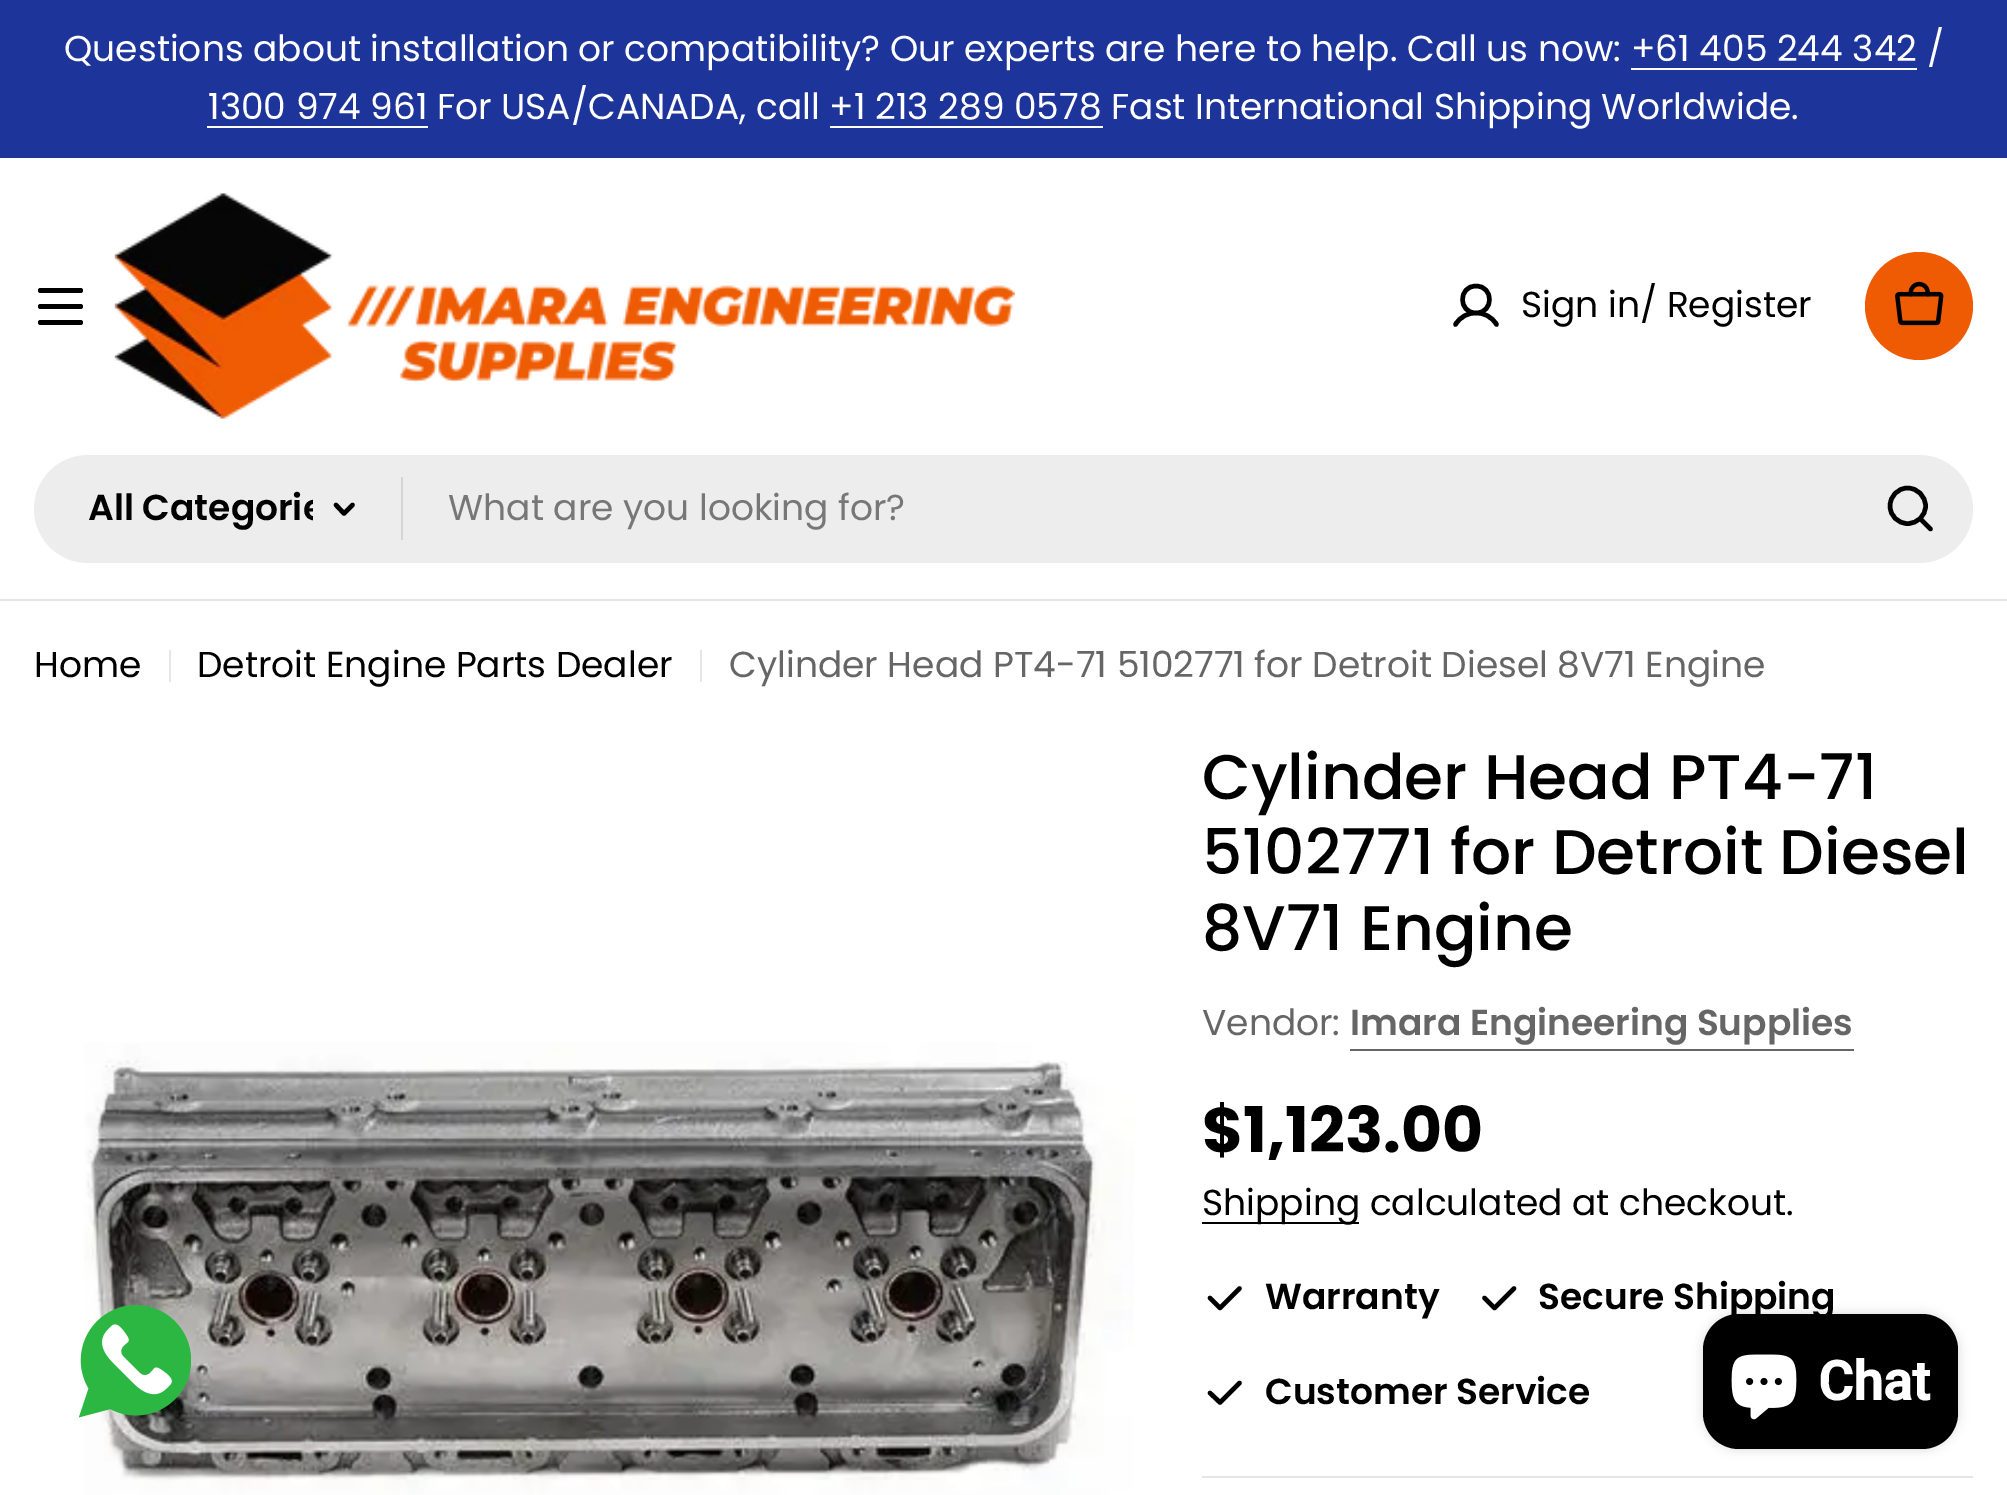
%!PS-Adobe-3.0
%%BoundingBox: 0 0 2007 1495
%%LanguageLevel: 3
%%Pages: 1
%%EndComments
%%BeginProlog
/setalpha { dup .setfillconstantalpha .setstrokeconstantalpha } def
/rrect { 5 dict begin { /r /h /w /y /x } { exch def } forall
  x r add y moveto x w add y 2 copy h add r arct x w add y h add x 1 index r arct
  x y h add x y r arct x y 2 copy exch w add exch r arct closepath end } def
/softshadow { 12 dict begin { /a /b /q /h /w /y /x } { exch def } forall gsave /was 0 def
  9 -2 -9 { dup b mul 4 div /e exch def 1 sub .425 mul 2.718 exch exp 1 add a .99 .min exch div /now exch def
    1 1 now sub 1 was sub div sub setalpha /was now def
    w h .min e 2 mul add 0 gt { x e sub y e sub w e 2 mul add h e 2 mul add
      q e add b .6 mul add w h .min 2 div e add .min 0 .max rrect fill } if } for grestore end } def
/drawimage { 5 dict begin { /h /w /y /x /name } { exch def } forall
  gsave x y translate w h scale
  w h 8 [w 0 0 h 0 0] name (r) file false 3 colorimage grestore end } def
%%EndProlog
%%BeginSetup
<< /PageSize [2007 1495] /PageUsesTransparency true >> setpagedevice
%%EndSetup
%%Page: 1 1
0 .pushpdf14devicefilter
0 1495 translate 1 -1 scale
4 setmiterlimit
1 setgray
0 0 2007 1495 rectfill
0.114 0.204 0.604 setrgbcolor
0 0 2007 158 rectfill
1 setgray
1631 68 286 2 rectfill
207 126 221 2 rectfill
830 126 273 2 rectfill
0.898 setgray
0 599 2007 2 rectfill
0 setgray
38 304 45 5 2.5 rrect fill
38 288 45 5 2.5 rrect fill
38 320 45 5 2.5 rrect fill
(images/1.raw) 114 193 901 226 drawimage
4.5 setlinewidth
1 setlinecap
1 setlinejoin
newpath 1476 313 moveto 1494 313 1494 286 1476 286 curveto 1458 286 1458 313 1476 313 curveto closepath 1455.5 324.5 moveto 1464.5 309 1487.5 309 1496.5 324.5 curveto stroke
0.937 0.357 0.012 setrgbcolor
newpath 1919 306 54 0 360 arc closepath fill
(images/2.raw) 1895 281 49 45 drawimage
0.929 setgray
34 455 1939 108 54 rrect fill
0 setgray
newpath 352.5 505 moveto 344 513.5 lineto 336 505 lineto stroke
0.835 setgray
401 477 2 63 rectfill
0 setgray
newpath 1907.5 523.5 moveto 1917.5 523.5 1925.5 516 1925.5 506 curveto 1925.5 496 1917.5 488 1907.5 488 curveto 1898 488 1890 496 1890 506 curveto 1890 516 1898 523.5 1907.5 523.5 curveto closepath 1920 518.5 moveto 1930.5 529 lineto stroke
0.902 setgray
169 650 2 32 rectfill
700 650 2 32 rectfill
(images/3.raw) 84 1042 1050 453 drawimage
0.4 setgray
1350 1049 504 2 rectfill
0 setgray
1202 1222 157 2 rectfill
newpath 1239.5 1288.5 moveto 1220 1308 lineto 1210 1298 lineto stroke
newpath 1514 1288.5 moveto 1494.5 1308 lineto 1484.5 1298 lineto stroke
newpath 1239.5 1383 moveto 1220 1402.5 lineto 1210 1393 lineto stroke
0.898 setgray
1202 1476 771 2 rectfill
(images/4.raw) 79 1305 112 113 drawimage
0 setgray
1703 1314 255 135 36 5.5 0.15 softshadow
1703 1314 255 135 36 rrect fill
(images/5.raw) 1731 1354 66 66 drawimage
/Poppins-Regular [36 0 0 -36 0 0] selectfont
1 setgray
64 61 moveto (Questions about installation or compatibility? Our experts are here to help. Call us now: +61 405 244 342 /) show
208 119 moveto (1300 974 961 For USA/CANADA, call +1 213 289 0578 Fast International Shipping Worldwide.) show
0 setgray
1521 317 moveto (Sign in/ Register) show
gsave
88 455 225 108 rectclip
/Poppins-SemiBold [36 0 0 -36 0 0] selectfont
88 520 moveto (All Categorie) show
grestore
0.467 setgray
448 520 moveto (What are you looking for?) show
0 setgray
34 677 moveto (Home) show
197 677 moveto (Detroit Engine Parts Dealer) show
0.4 setgray
729 677 moveto (Cylinder Head PT4-71 5102771 for Detroit Diesel 8V71 Engine) show
/Poppins-Medium [63 0 0 -63 0 0] selectfont
0 setgray
1202 799 moveto (Cylinder Head PT4-71) show
1202 874 moveto (5102771 for Detroit Diesel) show
1202 950 moveto (8V71 Engine) show
/Poppins-Regular [36 0 0 -36 0 0] selectfont
0.4 setgray
1202 1035 moveto (Vendor:) show
/Poppins-SemiBold [36 0 0 -36 0 0] selectfont
1350 1035 moveto (Imara Engineering Supplies) show
/Poppins-Bold [63 0 0 -63 0 0] selectfont
0 setgray
1202 1152 moveto ($1,123.00) show
/Poppins-Regular [36 0 0 -36 0 0] selectfont
1202 1215 moveto (Shipping calculated at checkout.) show
/Poppins-SemiBold [36 0 0 -36 0 0] selectfont
1265 1309 moveto (Warranty) show
1538 1309 moveto (Secure Shipping) show
1265 1404 moveto (Customer Service) show
/Roboto-Bold [54 0 0 -54 0 0] selectfont
1 setgray
1818 1400 moveto (Chat) show
.poppdf14devicefilter showpage
%%EOF
